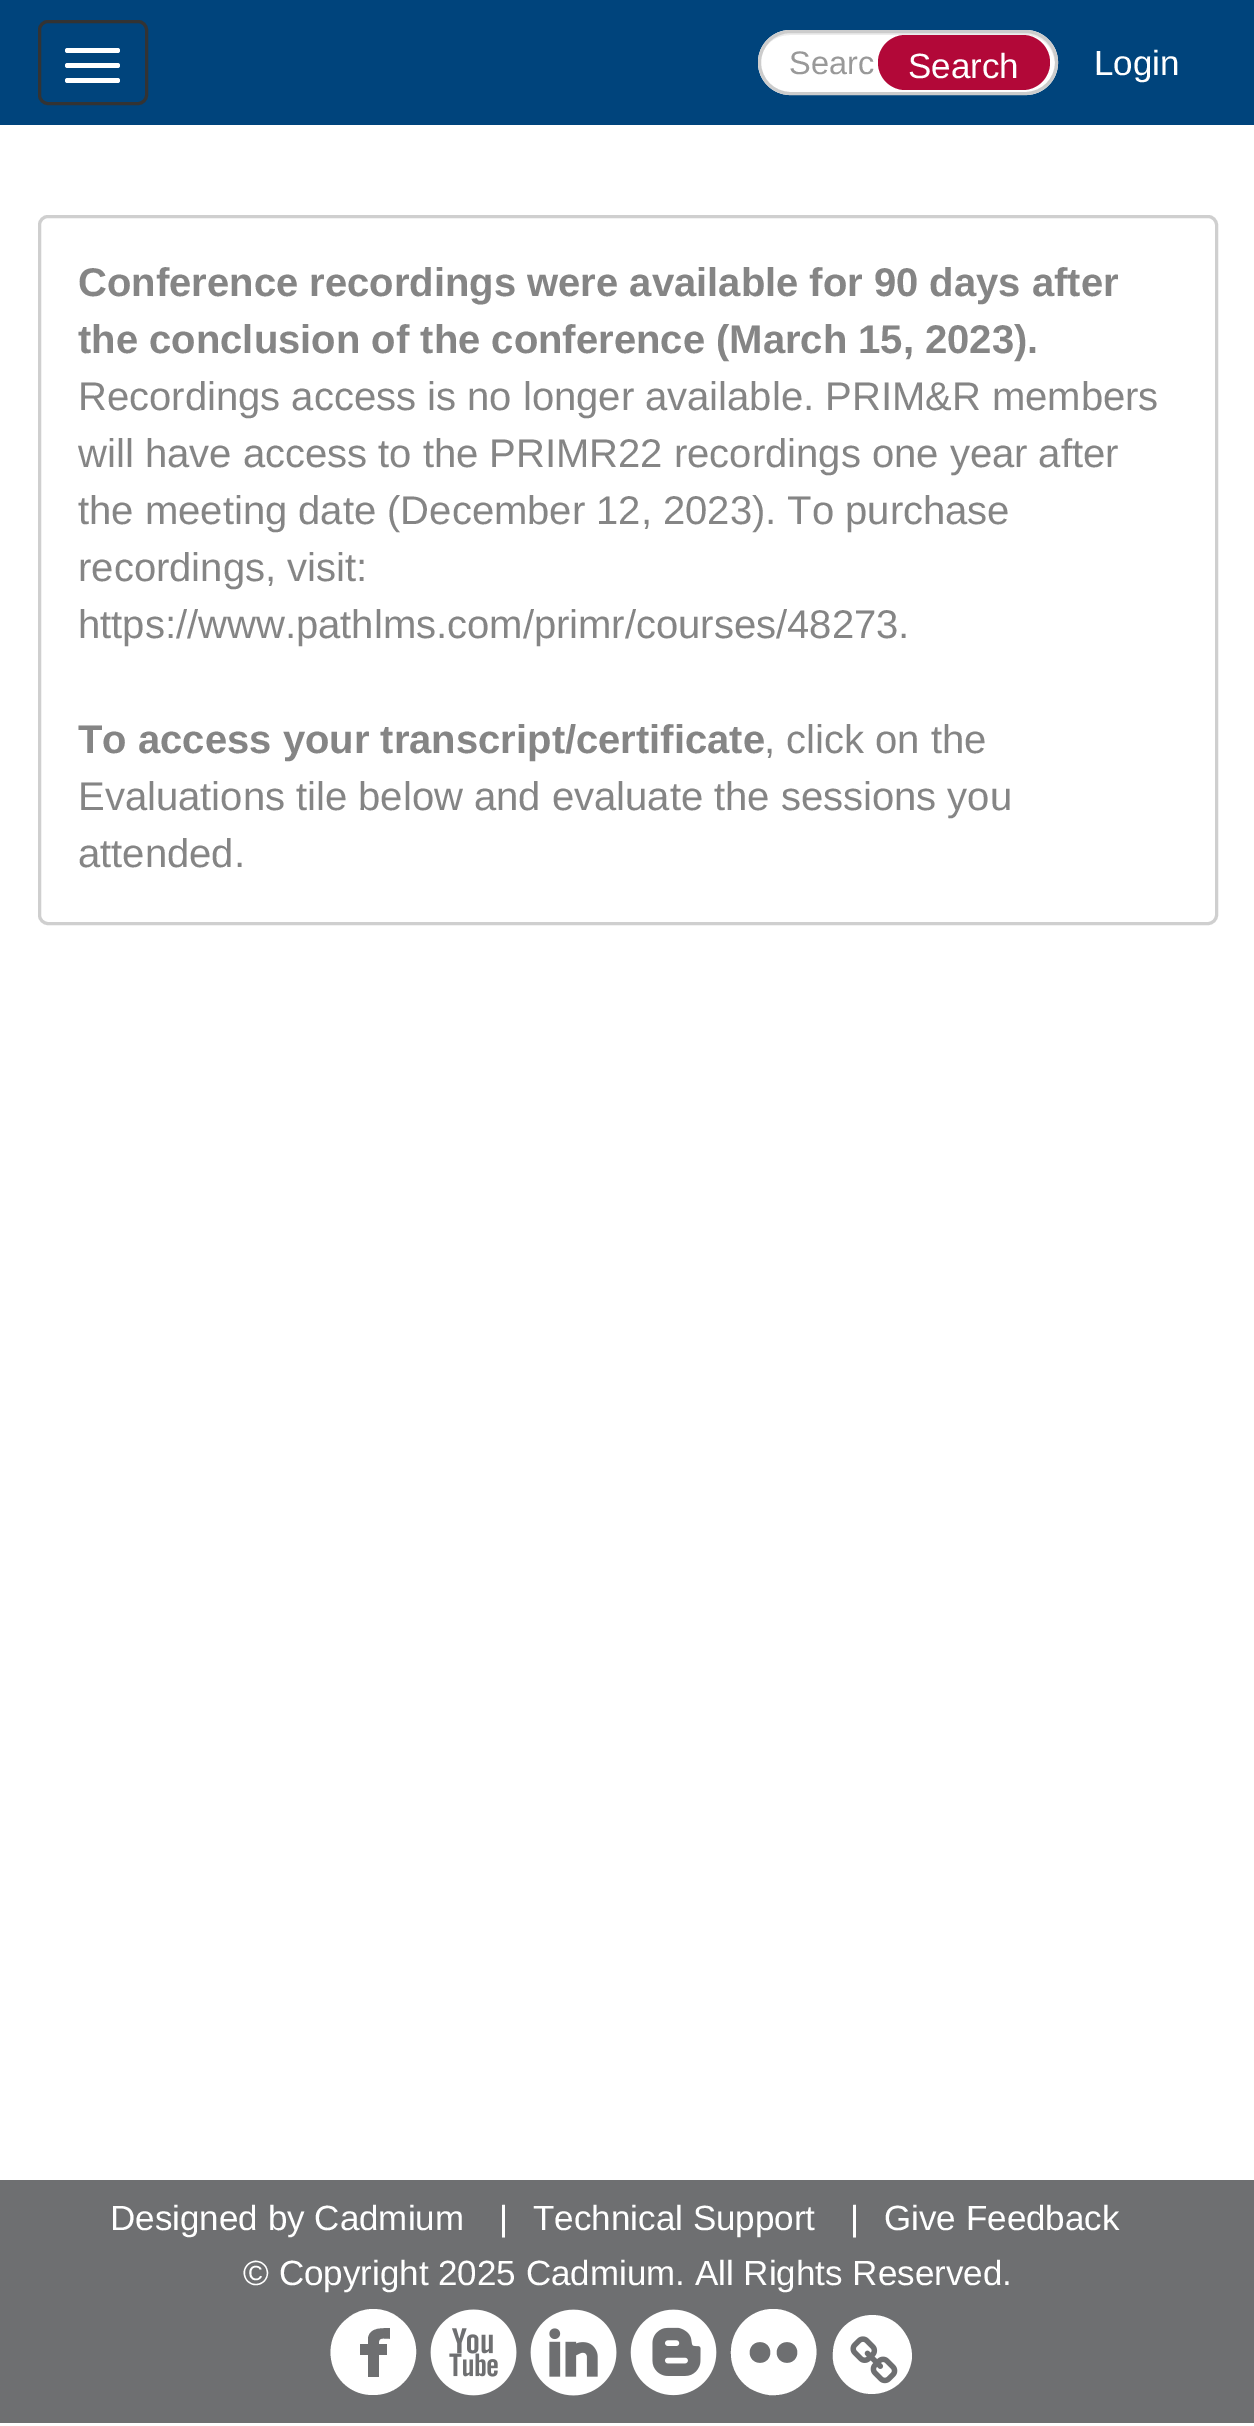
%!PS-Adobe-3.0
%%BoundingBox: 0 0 1254 2426
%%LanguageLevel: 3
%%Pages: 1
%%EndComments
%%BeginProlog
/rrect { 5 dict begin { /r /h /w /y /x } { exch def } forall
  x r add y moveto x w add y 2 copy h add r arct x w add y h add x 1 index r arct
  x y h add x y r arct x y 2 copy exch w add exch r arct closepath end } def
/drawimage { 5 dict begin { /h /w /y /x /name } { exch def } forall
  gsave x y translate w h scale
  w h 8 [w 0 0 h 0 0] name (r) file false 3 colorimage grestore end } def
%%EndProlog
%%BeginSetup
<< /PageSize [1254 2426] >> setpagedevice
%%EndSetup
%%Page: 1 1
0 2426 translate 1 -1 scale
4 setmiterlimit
1 setgray
0 0 1254 2426 rectfill
0 0.267 0.486 setrgbcolor
0 0 1254 125 rectfill
0.2 setgray
3 setlinewidth
39.5 21.5 107 82 8.5 rrect stroke
1 setgray
65 48 55 5 2.5 rrect fill
65 63 55 5 2.5 rrect fill
65 78 55 5 2.5 rrect fill
758 30 300 65 32.5 rrect fill
0.925 setgray
newpath 790 35 moveto 1025 35 lineto 1042 35 1054 47 1055 64 curveto 1055 63 lineto 1055 46 1042 33 1025 33 curveto 790 33 lineto 773 33 760 46 760 63 curveto 760 64 lineto 761 47 773 35 790 35 curveto closepath fill
0.8 setgray
759.5 31.5 297 62 31 rrect stroke
0.698 0.031 0.22 setrgbcolor
878 35 172 55 27.5 rrect fill
0.812 setgray
39.5 216.5 1177 707 8.5 rrect stroke
0.431 0.435 0.443 setrgbcolor
0 2180 1254 243 rectfill
1 setgray
newpath 373 2309 moveto 383 2309 392 2312 399 2318 curveto 432 2343 414 2395 373 2395 curveto 332 2395 315 2343 348 2318 curveto 355 2312 364 2309 373 2309 curveto closepath 390 2328 moveto 382 2328 370 2327 368 2337 curveto 368 2344 lineto 360 2344 lineto 360 2355 lineto 368 2355 lineto 368 2377 lineto 379 2377 lineto 379 2355 lineto 387 2355 lineto 387 2344 lineto 379 2344 lineto 379 2337 383 2339 390 2339 curveto closepath fill
(images/1.raw) 430 2309 87 87 drawimage
(images/2.raw) 530 2309 87 87 drawimage
(images/3.raw) 630 2309 87 87 drawimage
newpath 773 2309 moveto 784 2309 794 2313 802 2321 curveto 831 2346 813 2393 776 2395 curveto 767 2396 759 2393 751 2389 curveto 739 2382 731 2368 731 2354 curveto 730 2330 749 2309 773 2309 curveto closepath 760 2363 moveto 774 2363 774 2342 760 2342 curveto 746 2342 746 2363 760 2363 curveto closepath 787 2363 moveto 801 2363 801 2342 787 2342 curveto 773 2342 773 2363 787 2363 curveto closepath fill
newpath 906 2335 moveto 910 2341 912 2349 912 2357 curveto 909 2396 857 2408 838 2374 curveto 834 2368 832 2360 833 2352 curveto 835 2313 887 2301 906 2335 curveto closepath fill
(images/4.raw) 850 2336 48 48 drawimage
/LiberationSans-Regular [32.5 0 0 -32.5 0 0] selectfont
0.6 setgray
789 74 moveto (Searc) show
/LiberationSans-Regular [35 0 0 -35 0 0] selectfont
1 setgray
908 78 moveto (Search) show
1094 75 moveto (Login) show
/LiberationSans-Bold [40 0 0 -40 0 0] selectfont
0.522 setgray
78 296 moveto (Conference recordings were available for 90 days after) show
78 353 moveto (the conclusion of the conference \(March 15, 2023\).) show
/LiberationSans-Regular [40 0 0 -40 0 0] selectfont
78 410 moveto (Recordings access is no longer available. PRIM&R members) show
78 467 moveto (will have access to the PRIMR22 recordings one year after) show
78 524 moveto (the meeting date \(December 12, 2023\). To purchase) show
78 581 moveto (recordings, visit:) show
78 638 moveto (https://www.pathlms.com/primr/courses/48273.) show
/LiberationSans-Bold [40 0 0 -40 0 0] selectfont
78 753 moveto (To access your transcript/certificate) show
/LiberationSans-Regular [40 0 0 -40 0 0] selectfont
764 753 moveto (, click on the) show
78 810 moveto (Evaluations tile below and evaluate the sessions you) show
78 867 moveto (attended.) show
/LiberationSans-Regular [35 0 0 -35 0 0] selectfont
1 setgray
110 2230 moveto (Designed by Cadmium) show
499 2230 moveto (|) show
533 2230 moveto (Technical Support) show
850 2230 moveto (|) show
884 2230 moveto (Give Feedback) show
243 2285 moveto (© Copyright 2025 Cadmium. All Rights Reserved.) show
showpage
%%EOF
